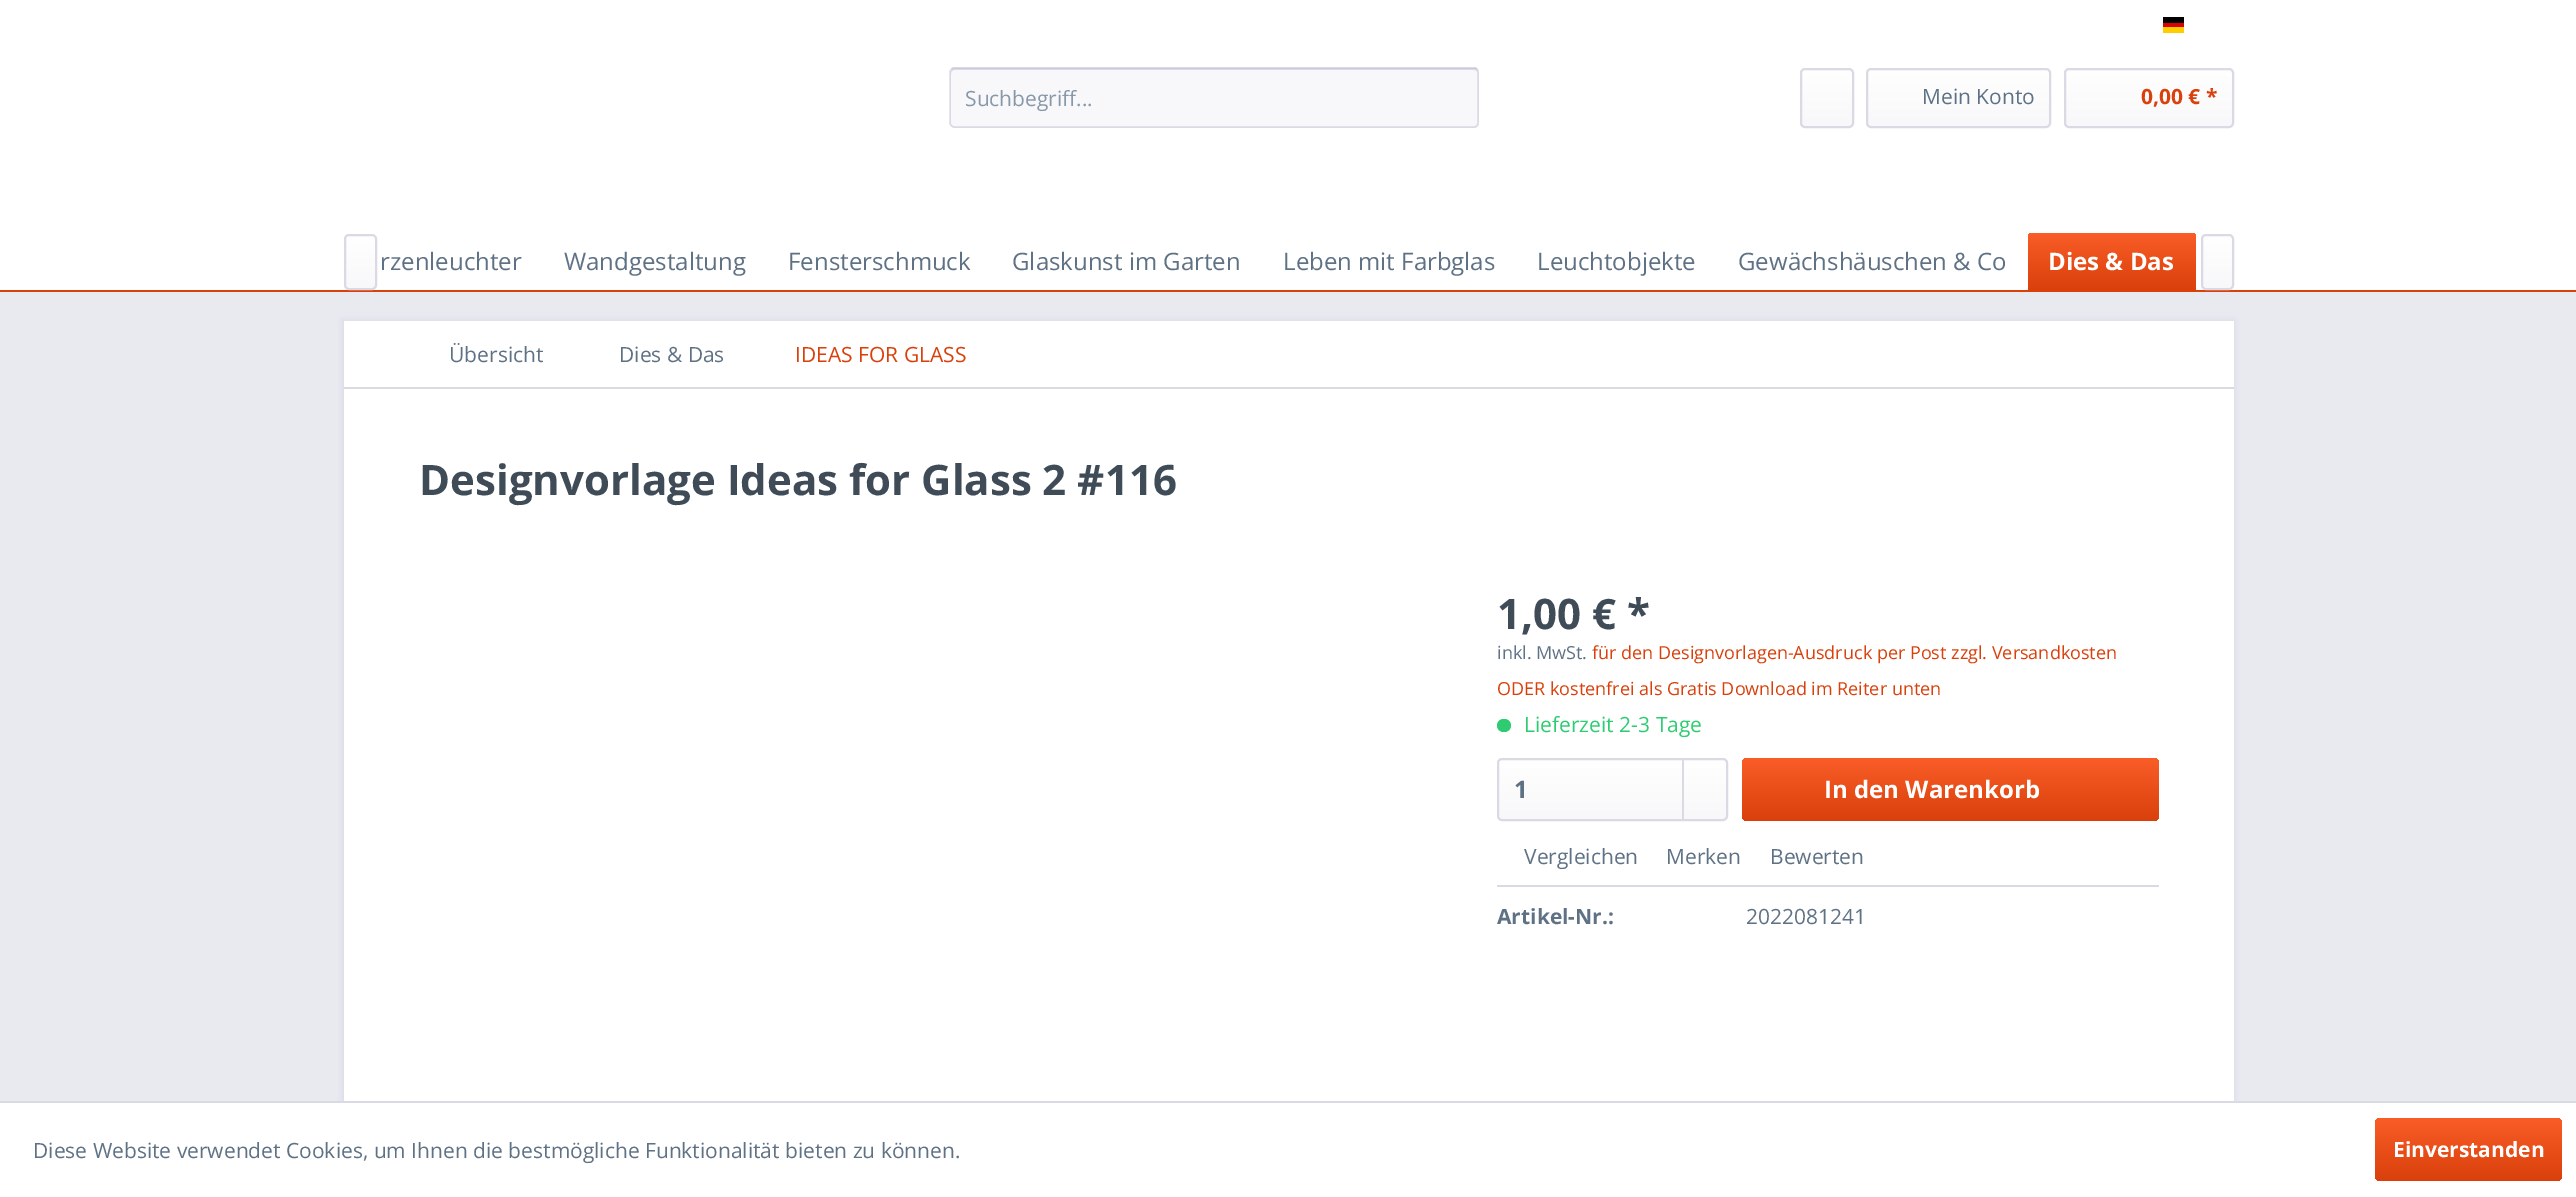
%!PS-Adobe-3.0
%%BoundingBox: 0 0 2576 1197
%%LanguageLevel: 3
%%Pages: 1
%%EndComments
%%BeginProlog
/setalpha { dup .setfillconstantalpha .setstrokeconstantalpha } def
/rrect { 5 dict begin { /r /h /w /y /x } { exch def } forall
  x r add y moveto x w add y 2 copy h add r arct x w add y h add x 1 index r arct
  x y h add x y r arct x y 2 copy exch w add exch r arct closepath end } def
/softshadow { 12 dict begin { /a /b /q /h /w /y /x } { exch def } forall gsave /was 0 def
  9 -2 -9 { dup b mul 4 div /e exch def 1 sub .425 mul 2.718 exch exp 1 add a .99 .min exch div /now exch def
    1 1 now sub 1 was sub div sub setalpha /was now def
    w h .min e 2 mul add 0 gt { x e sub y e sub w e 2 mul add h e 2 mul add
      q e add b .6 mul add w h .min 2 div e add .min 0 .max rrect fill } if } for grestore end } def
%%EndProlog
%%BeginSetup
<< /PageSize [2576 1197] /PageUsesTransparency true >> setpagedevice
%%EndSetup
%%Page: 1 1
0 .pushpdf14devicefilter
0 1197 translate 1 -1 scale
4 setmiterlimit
0.914 0.914 0.941 setrgbcolor
0 0 2576 1197 rectfill
1 setgray
0 0 2576 290 rectfill
0 setgray
2163 17 21 6 rectfill
0.867 0 0 setrgbcolor
2163 23 21 4 rectfill
1 0.808 0 setrgbcolor
2163 27 21 6 rectfill
0.973 0.973 0.98 setrgbcolor
950 68 529 60 5 rrect fill
0.855 0.855 0.898 setrgbcolor
newpath 954 70 moveto 1474 70 lineto 1476 70 1478 72 1478 74 curveto 1477 70 lineto 1475 69 lineto 954 69 lineto 951 69 951 72 951 74 curveto 951 72 952 70 954 70 curveto closepath fill
0.796 0.796 0.859 setrgbcolor
1.5 setlinewidth
newpath 951.5 69.5 moveto 952 68.5 953 68 954 68 curveto 1474.5 68 lineto 1475.5 68 1476.5 68.5 1477 69.5 curveto stroke
0.855 0.855 0.898 setrgbcolor
newpath 1477 69.5 moveto 1478 70 1478 71 1478 72 curveto 1478 123 lineto 1478 124 1478 125 1477 125.5 curveto 1476.5 126.5 1475.5 127 1474.5 127 curveto 954 127 lineto 953 127 952 126.5 951.5 125.5 curveto 950.5 125 950 124 950 123 curveto 950 72 lineto 950 71 950.5 70 951.5 69.5 curveto stroke
gsave 1802 69 51 57 3 rrect clip newpath
<< /ShadingType 2 /ColorSpace /DeviceRGB /Coords [1827 69 1827 126] /Extend [true true] /Function << /FunctionType 2 /Domain [0 1] /C0 [1 1 1] /C1 [0.973 0.973 0.98] /N 1 >> >> shfill grestore
2 setlinewidth
1801 69 52 58 4 rrect stroke
gsave 1868 69 181 57 3 rrect clip newpath
<< /ShadingType 2 /ColorSpace /DeviceRGB /Coords [1958 69 1958 126] /Extend [true true] /Function << /FunctionType 2 /Domain [0 1] /C0 [1 1 1] /C1 [0.973 0.973 0.98] /N 1 >> >> shfill grestore
1867 69 183 58 4 rrect stroke
gsave 2066 69 166 57 3 rrect clip newpath
<< /ShadingType 2 /ColorSpace /DeviceRGB /Coords [2149 69 2149 126] /Extend [true true] /Function << /FunctionType 2 /Domain [0 1] /C0 [1 1 1] /C1 [0.973 0.973 0.98] /N 1 >> >> shfill grestore
2065 69 168 58 4 rrect stroke
0.851 0.251 0.043 setrgbcolor
0 290 2576 2 rectfill
gsave 345 236 30 52 3 rrect clip newpath
<< /ShadingType 2 /ColorSpace /DeviceRGB /Coords [360 236 360 288] /Extend [true true] /Function << /FunctionType 2 /Domain [0 1] /C0 [1 1 1] /C1 [0.973 0.973 0.98] /N 1 >> >> shfill grestore
0.855 0.855 0.898 setrgbcolor
345 235 31 54 4 rrect stroke
gsave newpath 2033 233 moveto 2191 233 lineto 2194 233 2196 235 2196 238 curveto 2196 290 lineto 2028 290 lineto 2028 238 lineto 2028 235 2030 233 2033 233 curveto closepath clip newpath
<< /ShadingType 2 /ColorSpace /DeviceRGB /Coords [2112 233 2112 290] /Extend [true true] /Function << /FunctionType 2 /Domain [0 1] /C0 [0.98 0.365 0.153] /C1 [0.851 0.251 0.043] /N 1 >> >> shfill grestore
gsave 2202 236 30 52 3 rrect clip newpath
<< /ShadingType 2 /ColorSpace /DeviceRGB /Coords [2217 236 2217 288] /Extend [true true] /Function << /FunctionType 2 /Domain [0 1] /C0 [1 1 1] /C1 [0.973 0.973 0.98] /N 1 >> >> shfill grestore
2202 235 31 54 4 rrect stroke
342 320 1893 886 0 3 1 softshadow
1 setgray
344 321 1890 780 rectfill
0.855 0.855 0.898 setrgbcolor
344 387 1890 2 rectfill
0.18 0.8 0.443 setrgbcolor
1497 719 14 13 6.5 rrect fill
gsave 1499 759 228 60 3 rrect clip newpath
<< /ShadingType 2 /ColorSpace /DeviceRGB /Coords [1613 759 1613 819] /Extend [true true] /Function << /FunctionType 2 /Domain [0 1] /C0 [1 1 1] /C1 [0.973 0.973 0.98] /N 1 >> >> shfill grestore
0.855 0.855 0.898 setrgbcolor
1498 759 229 61 4 rrect stroke
1682 759 2 60 rectfill
gsave 1742 758 417 63 5 rrect clip newpath
<< /ShadingType 2 /ColorSpace /DeviceRGB /Coords [1950 758 1950 821] /Extend [true true] /Function << /FunctionType 2 /Domain [0 1] /C0 [0.98 0.365 0.153] /C1 [0.851 0.251 0.043] /N 1 >> >> shfill grestore
1497 885 662 2 rectfill
1 setgray
0 1103 2576 94 rectfill
0.855 0.855 0.898 setrgbcolor
0 1101 2576 2 rectfill
gsave 2375 1118 187 63 5 rrect clip newpath
<< /ShadingType 2 /ColorSpace /DeviceRGB /Coords [2468 1118 2468 1181] /Extend [true true] /Function << /FunctionType 2 /Domain [0 1] /C0 [0.98 0.365 0.153] /C1 [0.851 0.251 0.043] /N 1 >> >> shfill grestore
/OpenSans-Regular [21 0 0 -21 0 0] selectfont
0.529 0.596 0.663 setrgbcolor
965 106 moveto (Suchbegriff...) show
0.373 0.447 0.522 setrgbcolor
1922 104 moveto (Mein Konto) show
/OpenSans-Bold [21 0 0 -21 0 0] selectfont
0.851 0.251 0.043 setrgbcolor
2141 104 moveto (0,00 € *) show
/OpenSans-Regular [24 0 0 -24 0 0] selectfont
0.373 0.447 0.522 setrgbcolor
380 270 moveto (rzenleuchter) show
564 270 moveto (Wandgestaltung) show
788 270 moveto (Fensterschmuck) show
1012 270 moveto (Glaskunst im Garten) show
1283 270 moveto (Leben mit Farbglas) show
1537 270 moveto (Leuchtobjekte) show
1738 270 moveto (Gewächshäuschen & Co) show
/OpenSans-Bold [24 0 0 -24 0 0] selectfont
1 setgray
2048 270 moveto (Dies & Das) show
/OpenSans-Regular [21 0 0 -21 0 0] selectfont
0.373 0.447 0.522 setrgbcolor
449 362 moveto (Übersicht) show
619 362 moveto (Dies & Das) show
0.851 0.251 0.043 setrgbcolor
795 362 moveto (IDEAS FOR GLASS) show
/OpenSans-Bold [42 0 0 -42 0 0] selectfont
0.247 0.298 0.345 setrgbcolor
419 495 moveto (Designvorlage Ideas for Glass 2 #116) show
1497 629 moveto (1,00 € *) show
/OpenSans-Regular [18 0 0 -18 0 0] selectfont
0.373 0.447 0.522 setrgbcolor
1497 659 moveto (inkl. MwSt.) show
0.851 0.251 0.043 setrgbcolor
1592 659 moveto (für den Designvorlagen-Ausdruck per Post zzgl. Versandkosten) show
1497 695 moveto (ODER kostenfrei als Gratis Download im Reiter unten) show
/OpenSans-Regular [21 0 0 -21 0 0] selectfont
0.18 0.8 0.443 setrgbcolor
1524 732 moveto (Lieferzeit 2-3 Tage) show
/OpenSans-Bold [24 0 0 -24 0 0] selectfont
0.373 0.447 0.522 setrgbcolor
1514 798 moveto (1) show
1 setgray
1824 798 moveto (In den Warenkorb) show
/OpenSans-Regular [21 0 0 -21 0 0] selectfont
0.373 0.447 0.522 setrgbcolor
1524 864 moveto (Vergleichen) show
1666 864 moveto (Merken) show
1770 864 moveto (Bewerten) show
/OpenSans-Bold [21 0 0 -21 0 0] selectfont
1497 924 moveto (Artikel-Nr.:) show
/OpenSans-Regular [21 0 0 -21 0 0] selectfont
1746 924 moveto (2022081241) show
33 1158 moveto (Diese Website verwendet Cookies, um Ihnen die bestmögliche Funktionalität bieten zu können.) show
/OpenSans-Bold [21 0 0 -21 0 0] selectfont
1 setgray
2393 1157 moveto (Einverstanden) show
.poppdf14devicefilter showpage
%%EOF
